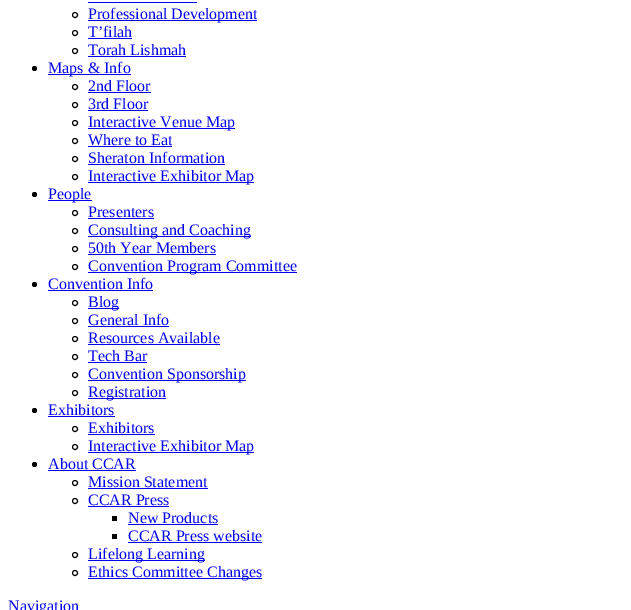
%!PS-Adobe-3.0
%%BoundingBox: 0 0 631 610
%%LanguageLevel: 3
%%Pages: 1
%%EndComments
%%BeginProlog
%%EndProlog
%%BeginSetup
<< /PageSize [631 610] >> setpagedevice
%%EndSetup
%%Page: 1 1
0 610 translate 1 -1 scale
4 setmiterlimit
1 setgray
0 0 631 610 rectfill
0 0 0.933 setrgbcolor
88 2 109 1 rectfill
0 setgray
newpath 75 15 2.5 0 360 arc closepath stroke
0 0 0.933 setrgbcolor
88 20 169 1 rectfill
0 setgray
newpath 75 33 2.5 0 360 arc closepath stroke
0 0 0.933 setrgbcolor
88 38 44 1 rectfill
0 setgray
newpath 75 51 2.5 0 360 arc closepath stroke
0 0 0.933 setrgbcolor
88 56 98 1 rectfill
0 setgray
newpath 34.5 68.5 2.5 0 360 arc closepath fill
0 0 0.933 setrgbcolor
48 74 83 1 rectfill
0 setgray
newpath 75 87 2.5 0 360 arc closepath stroke
0 0 0.933 setrgbcolor
88 92 63 1 rectfill
0 setgray
newpath 75 105 2.5 0 360 arc closepath stroke
0 0 0.933 setrgbcolor
88 110 60 1 rectfill
0 setgray
newpath 75 123 2.5 0 360 arc closepath stroke
0 0 0.933 setrgbcolor
88 128 147 1 rectfill
0 setgray
newpath 75 141 2.5 0 360 arc closepath stroke
0 0 0.933 setrgbcolor
88 146 84 1 rectfill
0 setgray
newpath 75 159 2.5 0 360 arc closepath stroke
0 0 0.933 setrgbcolor
88 164 137 1 rectfill
0 setgray
newpath 75 177 2.5 0 360 arc closepath stroke
0 0 0.933 setrgbcolor
88 182 166 1 rectfill
0 setgray
newpath 34.5 194.5 2.5 0 360 arc closepath fill
0 0 0.933 setrgbcolor
48 200 44 1 rectfill
0 setgray
newpath 75 213 2.5 0 360 arc closepath stroke
0 0 0.933 setrgbcolor
88 218 66 1 rectfill
0 setgray
newpath 75 231 2.5 0 360 arc closepath stroke
0 0 0.933 setrgbcolor
88 236 163 1 rectfill
0 setgray
newpath 75 249 2.5 0 360 arc closepath stroke
0 0 0.933 setrgbcolor
88 254 128 1 rectfill
0 setgray
newpath 75 267 2.5 0 360 arc closepath stroke
0 0 0.933 setrgbcolor
88 272 209 1 rectfill
0 setgray
newpath 34.5 284.5 2.5 0 360 arc closepath fill
0 0 0.933 setrgbcolor
48 290 105 1 rectfill
0 setgray
newpath 75 303 2.5 0 360 arc closepath stroke
0 0 0.933 setrgbcolor
88 308 31 1 rectfill
0 setgray
newpath 75 321 2.5 0 360 arc closepath stroke
0 0 0.933 setrgbcolor
88 326 81 1 rectfill
0 setgray
newpath 75 339 2.5 0 360 arc closepath stroke
0 0 0.933 setrgbcolor
88 344 132 1 rectfill
0 setgray
newpath 75 357 2.5 0 360 arc closepath stroke
0 0 0.933 setrgbcolor
88 362 59 1 rectfill
0 setgray
newpath 75 375 2.5 0 360 arc closepath stroke
0 0 0.933 setrgbcolor
88 380 158 1 rectfill
0 setgray
newpath 75 393 2.5 0 360 arc closepath stroke
0 0 0.933 setrgbcolor
88 398 78 1 rectfill
0 setgray
newpath 34.5 410.5 2.5 0 360 arc closepath fill
0 0 0.933 setrgbcolor
48 416 67 1 rectfill
0 setgray
newpath 75 429 2.5 0 360 arc closepath stroke
0 0 0.933 setrgbcolor
88 434 67 1 rectfill
0 setgray
newpath 75 447 2.5 0 360 arc closepath stroke
0 0 0.933 setrgbcolor
88 452 166 1 rectfill
0 setgray
newpath 34.5 464.5 2.5 0 360 arc closepath fill
0 0 0.933 setrgbcolor
48 470 88 1 rectfill
0 setgray
newpath 75 483 2.5 0 360 arc closepath stroke
0 0 0.933 setrgbcolor
88 488 120 1 rectfill
0 setgray
newpath 75 501 2.5 0 360 arc closepath stroke
0 0 0.933 setrgbcolor
88 506 81 1 rectfill
0 setgray
112 516 5 5 rectfill
0 0 0.933 setrgbcolor
128 524 90 1 rectfill
0 setgray
112 534 5 5 rectfill
0 0 0.933 setrgbcolor
128 542 134 1 rectfill
0 setgray
newpath 75 555 2.5 0 360 arc closepath stroke
0 0 0.933 setrgbcolor
88 560 117 1 rectfill
0 setgray
newpath 75 573 2.5 0 360 arc closepath stroke
0 0 0.933 setrgbcolor
88 578 174 1 rectfill
/LiberationSerif-Regular [16 0 0 -16 0 0] selectfont
88 19 moveto (Professional Development) show
88 37 moveto (T’filah) show
88 55 moveto (Torah Lishmah) show
48 73 moveto (Maps & Info) show
88 91 moveto (2nd Floor) show
88 109 moveto (3rd Floor) show
88 127 moveto (Interactive Venue Map) show
88 145 moveto (Where to Eat) show
88 163 moveto (Sheraton Information) show
88 181 moveto (Interactive Exhibitor Map) show
48 199 moveto (People) show
88 217 moveto (Presenters) show
88 235 moveto (Consulting and Coaching) show
88 253 moveto (50th Year Members) show
88 271 moveto (Convention Program Committee) show
48 289 moveto (Convention Info) show
88 307 moveto (Blog) show
88 325 moveto (General Info) show
88 343 moveto (Resources Available) show
88 361 moveto (Tech Bar) show
88 379 moveto (Convention Sponsorship) show
88 397 moveto (Registration) show
48 415 moveto (Exhibitors) show
88 433 moveto (Exhibitors) show
88 451 moveto (Interactive Exhibitor Map) show
48 469 moveto (About CCAR) show
88 487 moveto (Mission Statement) show
88 505 moveto (CCAR Press) show
128 523 moveto (New Products) show
128 541 moveto (CCAR Press website) show
88 559 moveto (Lifelong Learning) show
88 577 moveto (Ethics Committee Changes) show
8 611 moveto (Navigation) show
showpage
%%EOF
